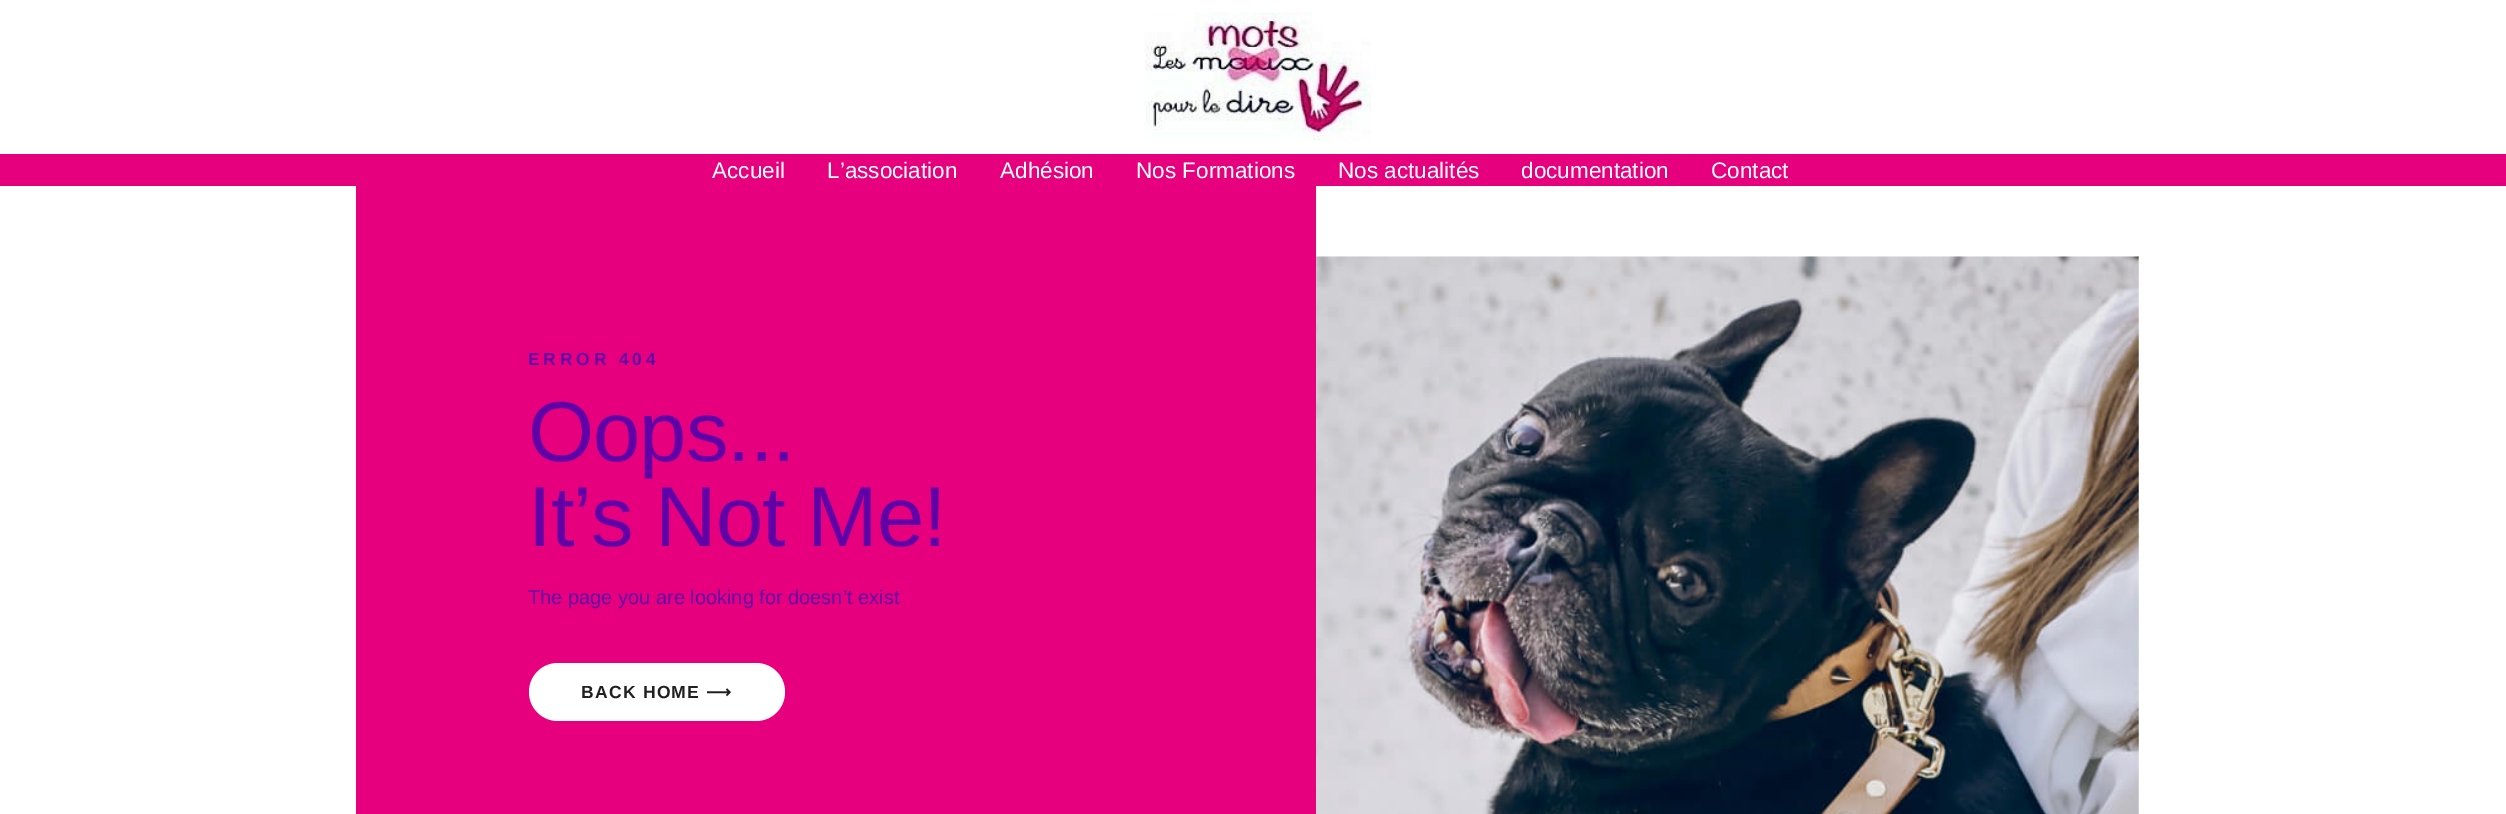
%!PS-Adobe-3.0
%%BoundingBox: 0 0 2506 814
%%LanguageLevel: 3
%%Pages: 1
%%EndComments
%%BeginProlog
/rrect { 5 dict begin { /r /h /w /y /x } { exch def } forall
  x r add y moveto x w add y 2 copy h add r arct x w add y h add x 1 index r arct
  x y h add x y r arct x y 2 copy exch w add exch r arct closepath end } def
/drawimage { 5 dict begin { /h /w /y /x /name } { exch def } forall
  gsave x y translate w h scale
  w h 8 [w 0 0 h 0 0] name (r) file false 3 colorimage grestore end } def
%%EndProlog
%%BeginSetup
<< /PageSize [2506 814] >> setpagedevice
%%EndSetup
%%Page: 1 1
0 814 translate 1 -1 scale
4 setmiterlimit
1 setgray
0 0 2506 814 rectfill
(images/1.raw) 1144 12 228 129 drawimage
0.902 0 0.494 setrgbcolor
0 154 2506 32 rectfill
356 186 960 628 rectfill
1 setgray
529 663 256 58 29 rrect fill
(images/2.raw) 1316 256 823 558 drawimage
/LiberationSans-Regular [22.5 0 0 -22.5 0 0] selectfont
712 178 moveto (Accueil) show
827 178 moveto (L’association) show
1000 178 moveto (Adhésion) show
1136 178 moveto (Nos Formations) show
1338 178 moveto (Nos actualités) show
1521 178 moveto (documentation) show
1711 178 moveto (Contact) show
/LiberationSans-Bold [17.5 0 0 -17.5 0 0] selectfont
0.384 0 0.655 setrgbcolor
528 365 moveto 3.75 0 (ERROR 404) ashow
/LiberationSans-Regular [85 0 0 -85 0 0] selectfont
528 461 moveto -1 0 (Oops...) ashow
528 546 moveto -1 0 (It’s Not Me!) ashow
/LiberationSans-Regular [20 0 0 -20 0 0] selectfont
528 604 moveto (The page you are looking for doesn’t exist) show
/LiberationSans-Bold [17.5 0 0 -17.5 0 0] selectfont
0.125 setgray
581 698 moveto 1.25 0 (BACK HOME) ashow
/DejaVuSans-Bold [17.5 0 0 -17.5 0 0] selectfont
706 698 moveto 1.25 0 (⟶) ashow
showpage
%%EOF
